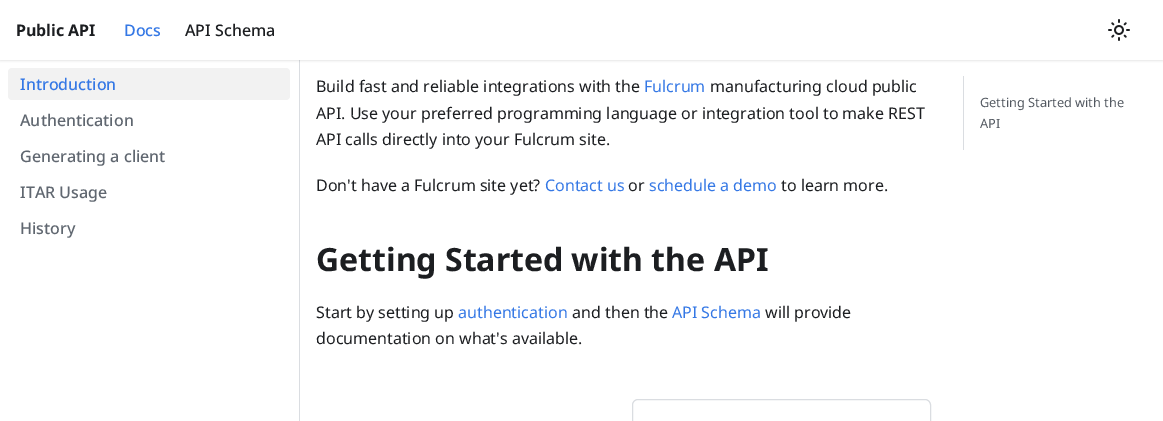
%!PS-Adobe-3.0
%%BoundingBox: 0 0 1163 421
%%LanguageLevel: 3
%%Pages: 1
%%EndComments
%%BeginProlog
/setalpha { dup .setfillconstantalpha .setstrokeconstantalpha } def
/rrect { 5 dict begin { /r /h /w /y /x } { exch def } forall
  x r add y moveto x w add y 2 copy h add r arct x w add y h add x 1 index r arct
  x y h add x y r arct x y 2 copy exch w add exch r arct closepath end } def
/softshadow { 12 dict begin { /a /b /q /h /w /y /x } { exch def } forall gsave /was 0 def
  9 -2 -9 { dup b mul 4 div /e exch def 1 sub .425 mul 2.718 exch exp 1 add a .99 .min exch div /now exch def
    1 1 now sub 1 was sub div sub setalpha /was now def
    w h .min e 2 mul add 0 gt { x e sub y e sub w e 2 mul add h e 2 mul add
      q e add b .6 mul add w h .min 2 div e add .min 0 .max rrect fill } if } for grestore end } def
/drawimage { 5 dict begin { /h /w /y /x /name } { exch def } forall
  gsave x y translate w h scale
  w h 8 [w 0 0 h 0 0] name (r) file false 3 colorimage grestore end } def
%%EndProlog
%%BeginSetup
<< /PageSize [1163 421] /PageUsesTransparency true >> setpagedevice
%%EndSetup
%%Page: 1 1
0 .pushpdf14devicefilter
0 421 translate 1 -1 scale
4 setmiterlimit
1 setgray
0 0 1163 421 rectfill
0.855 0.867 0.882 setrgbcolor
299 60 1 361 rectfill
0 setgray
0 1 1163 60 0 1 0.1 softshadow
1 setgray
0 0 1163 60 rectfill
(images/1.raw) 1108 19 22 22 drawimage
0.949 setgray
8 68 282 32 4 rrect fill
0.855 0.867 0.882 setrgbcolor
632.5 399.5 298 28 5.5 rrect stroke
963 76 1 74 rectfill
/NotoSans-Bold [16 0 0 -16 0 0] selectfont
0.11 0.118 0.129 setrgbcolor
16 36 moveto (Public API) show
/NotoSans-Medium [16 0 0 -16 0 0] selectfont
0.208 0.471 0.898 setrgbcolor
124 36 moveto (Docs) show
0.11 0.118 0.129 setrgbcolor
185 36 moveto (API Schema) show
0.208 0.471 0.898 setrgbcolor
20 90 moveto (Introduction) show
0.376 0.404 0.439 setrgbcolor
20 126 moveto (Authentication) show
20 162 moveto (Generating a client) show
20 198 moveto (ITAR Usage) show
20 234 moveto (History) show
/NotoSans-Regular [16 0 0 -16 0 0] selectfont
0.11 0.118 0.129 setrgbcolor
316 92 moveto (Build fast and reliable integrations with the) show
0.208 0.471 0.898 setrgbcolor
644 92 moveto (Fulcrum) show
0.11 0.118 0.129 setrgbcolor
710 92 moveto (manufacturing cloud public) show
316 119 moveto (API. Use your preferred programming language or integration tool to make REST) show
316 145 moveto (API calls directly into your Fulcrum site.) show
316 191 moveto (Don't have a Fulcrum site yet?) show
0.208 0.471 0.898 setrgbcolor
545 191 moveto (Contact us) show
0.11 0.118 0.129 setrgbcolor
628 191 moveto (or) show
0.208 0.471 0.898 setrgbcolor
649 191 moveto (schedule a demo) show
0.11 0.118 0.129 setrgbcolor
781 191 moveto (to learn more.) show
/NotoSans-Bold [32 0 0 -32 0 0] selectfont
316 271 moveto (Getting Started with the API) show
/NotoSans-Regular [16 0 0 -16 0 0] selectfont
316 318 moveto (Start by setting up) show
0.208 0.471 0.898 setrgbcolor
458 318 moveto (authentication) show
0.11 0.118 0.129 setrgbcolor
572 318 moveto (and then the) show
0.208 0.471 0.898 setrgbcolor
672 318 moveto (API Schema) show
0.11 0.118 0.129 setrgbcolor
765 318 moveto (will provide) show
316 344 moveto (documentation on what's available.) show
/NotoSans-Regular [12.75 0 0 -12.75 0 0] selectfont
0.322 0.345 0.376 setrgbcolor
980 107 moveto (Getting Started with the) show
980 128 moveto (API) show
.poppdf14devicefilter showpage
%%EOF
